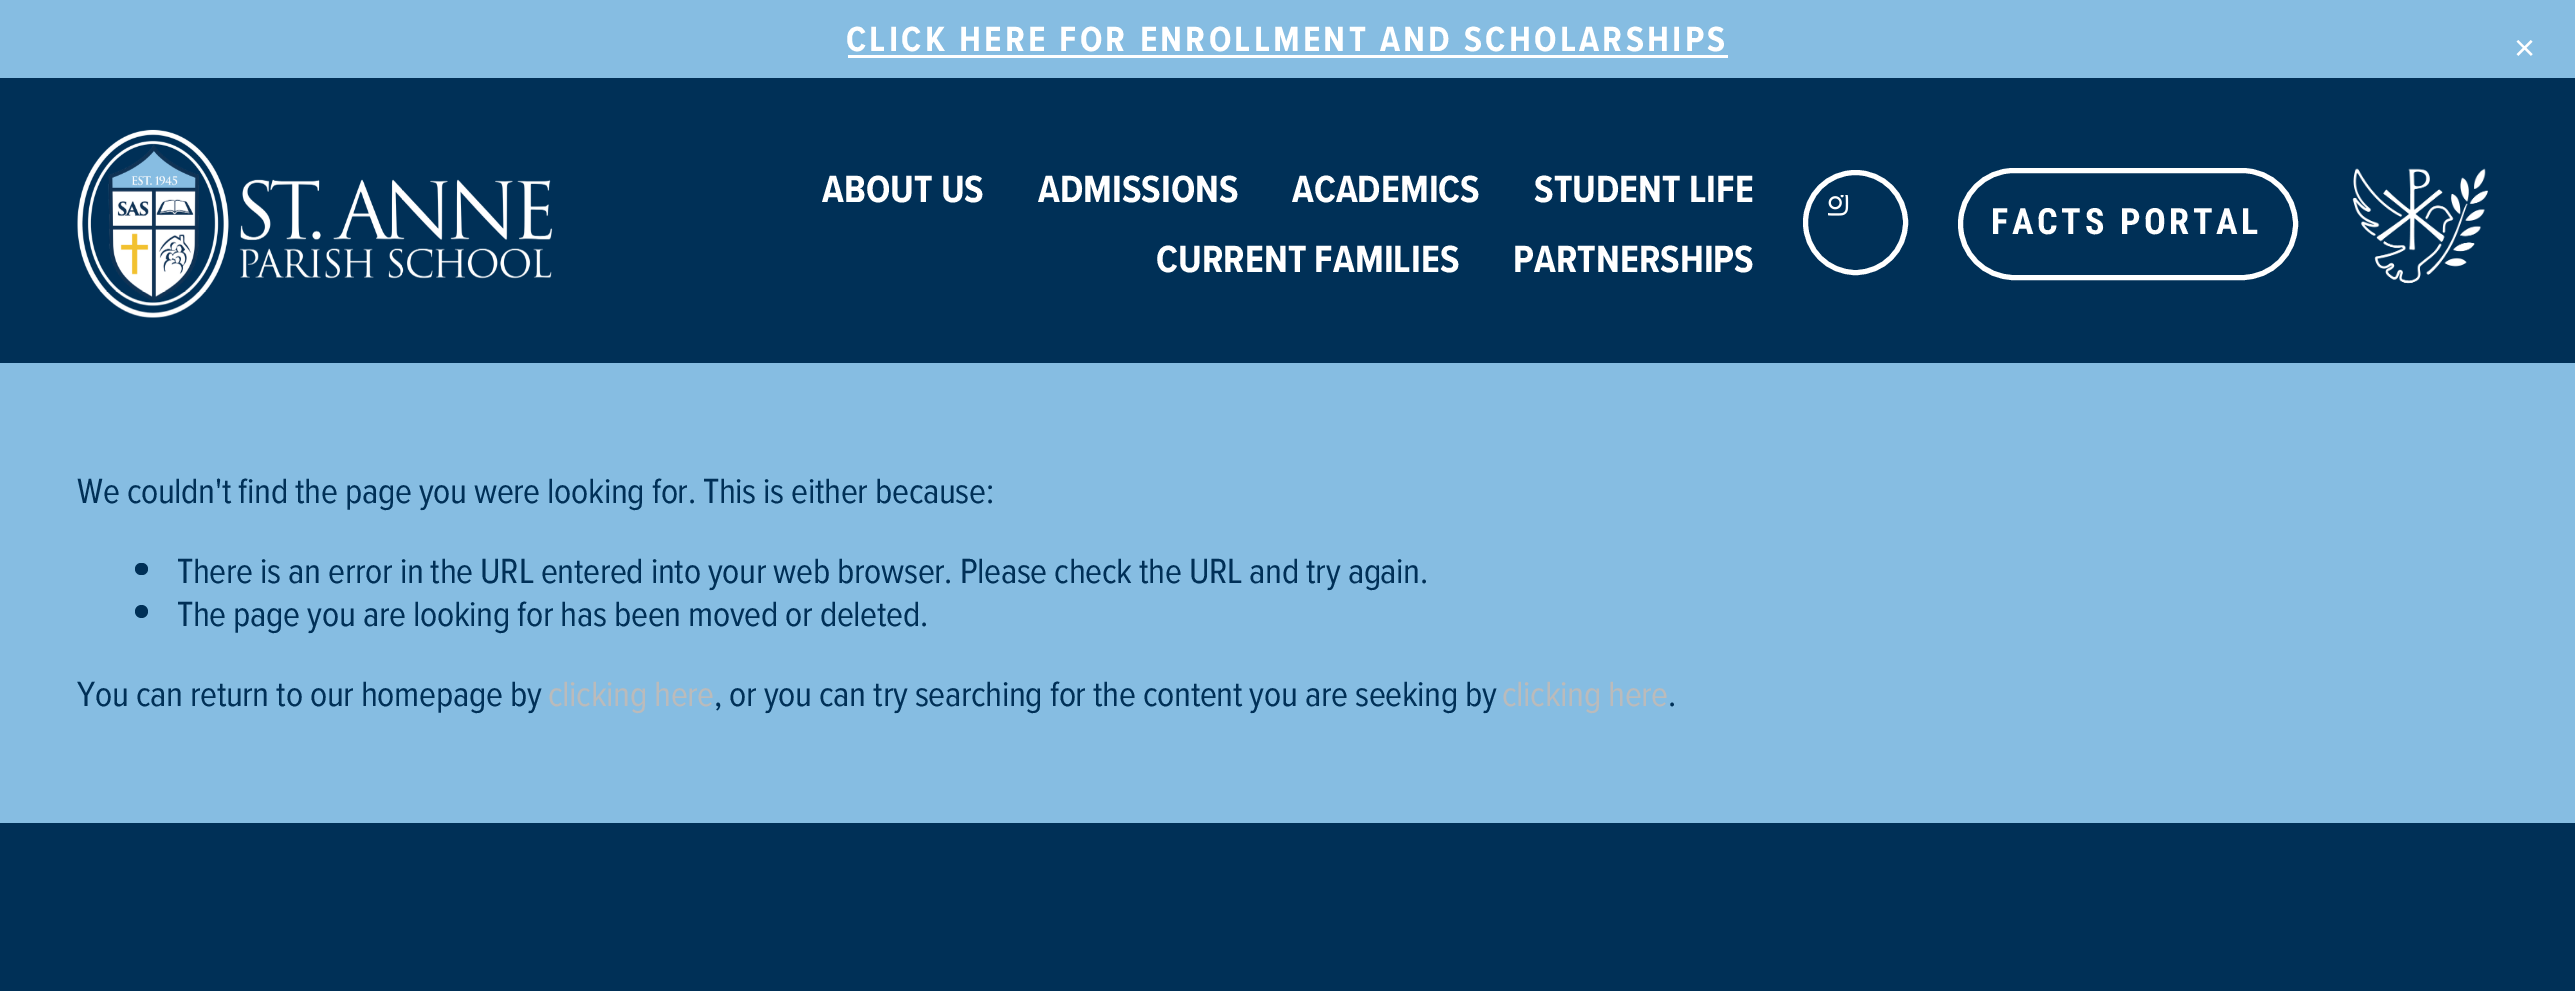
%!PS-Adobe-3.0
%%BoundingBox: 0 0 2575 991
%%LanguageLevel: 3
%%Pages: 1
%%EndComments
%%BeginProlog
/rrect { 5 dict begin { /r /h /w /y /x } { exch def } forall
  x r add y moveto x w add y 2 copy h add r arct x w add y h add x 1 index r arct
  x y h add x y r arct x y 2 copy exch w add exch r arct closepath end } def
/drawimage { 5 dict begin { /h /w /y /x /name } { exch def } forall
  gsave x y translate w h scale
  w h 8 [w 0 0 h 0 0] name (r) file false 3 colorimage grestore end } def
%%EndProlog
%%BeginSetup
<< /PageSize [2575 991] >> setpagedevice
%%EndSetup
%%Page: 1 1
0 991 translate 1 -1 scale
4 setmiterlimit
0.525 0.741 0.886 setrgbcolor
0 0 2575 991 rectfill
0 0.188 0.341 setrgbcolor
0 78 2575 285 rectfill
1 setgray
848 55 880 3 rectfill
(images/1.raw) 77 129 476 189 drawimage
5 setlinewidth
newpath 1855.5 222.5 50 0 360 arc closepath stroke
(images/2.raw) 1828 195 21 21 drawimage
1960.5 170.5 335 107 53.5 rrect stroke
(images/3.raw) 2352 168 136 116 drawimage
0 0.188 0.341 setrgbcolor
135 563 13 12 6 rrect fill
newpath 141.5 611.5 6.5 0 360 arc closepath fill
0 823 2575 168 rectfill
/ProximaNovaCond-Bold [36.2 0 0 -36.2 0 0] selectfont
1 setgray
846 51 moveto 3.25 0 (CLICK HERE FOR ENROLLMENT AND SCHOLARSHIPS) ashow
/LiberationSans-Regular [36.2 0 0 -36.2 0 0] selectfont
2514 60 moveto (×) show
/ProximaNovaCond-Bold [39.25 0 0 -39.25 0 0] selectfont
822 202 moveto (ABOUT US) show
1038 202 moveto (ADMISSIONS) show
1292 202 moveto (ACADEMICS) show
1534 202 moveto (STUDENT LIFE) show
1156 272 moveto (CURRENT FAMILIES) show
1513 272 moveto (PARTNERSHIPS) show
/RobotoCondensed-Bold [36.2 0 0 -36.2 0 0] selectfont
1991 234 moveto 3.6 0 (FACTS PORTAL) ashow
/ProximaNovaCond-Regular [36.2 0 0 -36.2 0 0] selectfont
0 0.188 0.341 setrgbcolor
77 503 moveto -0.35 0 (We couldn't find the page you were looking for. This is either because:) ashow
177 583 moveto -0.35 0 (There is an error in the URL entered into your web browser. Please check the URL and try again.) ashow
177 626 moveto -0.35 0 (The page you are looking for has been moved or deleted.) ashow
77 706 moveto -0.35 0 (You can return to our homepage by) ashow
0.733 setgray
548 706 moveto -0.35 0 (clicking here) ashow
0 0.188 0.341 setrgbcolor
714 706 moveto -0.35 0 (, or you can try searching for the content you are seeking by) ashow
0.733 setgray
1502 706 moveto -0.35 0 (clicking here) ashow
0 0.188 0.341 setrgbcolor
1668 706 moveto -0.35 0 (.) ashow
showpage
%%EOF
